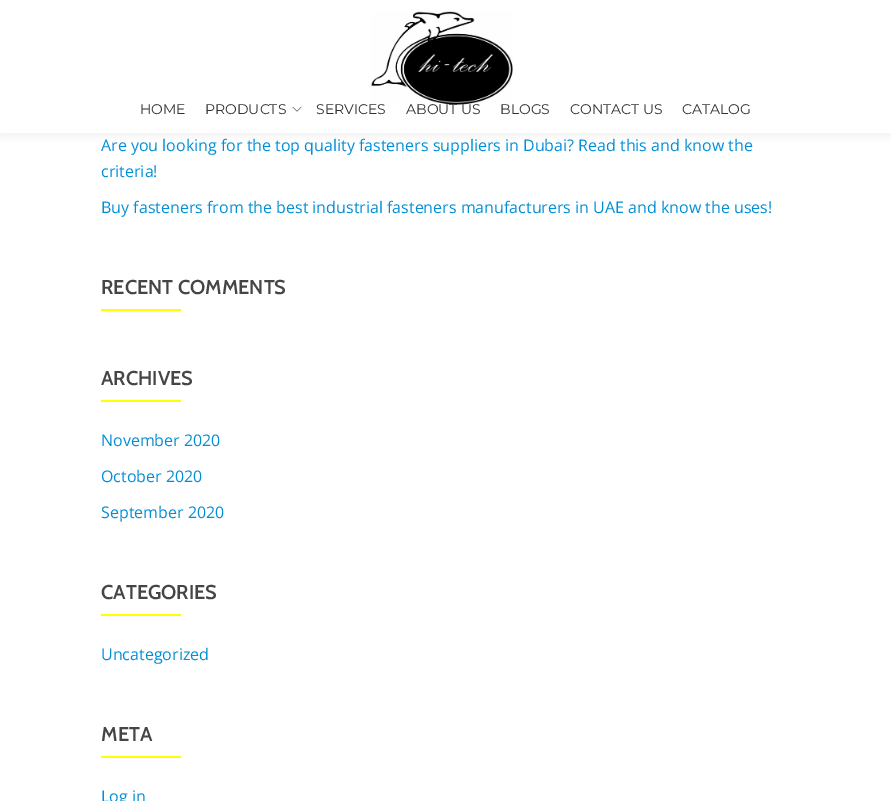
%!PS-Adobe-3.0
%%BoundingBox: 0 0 891 801
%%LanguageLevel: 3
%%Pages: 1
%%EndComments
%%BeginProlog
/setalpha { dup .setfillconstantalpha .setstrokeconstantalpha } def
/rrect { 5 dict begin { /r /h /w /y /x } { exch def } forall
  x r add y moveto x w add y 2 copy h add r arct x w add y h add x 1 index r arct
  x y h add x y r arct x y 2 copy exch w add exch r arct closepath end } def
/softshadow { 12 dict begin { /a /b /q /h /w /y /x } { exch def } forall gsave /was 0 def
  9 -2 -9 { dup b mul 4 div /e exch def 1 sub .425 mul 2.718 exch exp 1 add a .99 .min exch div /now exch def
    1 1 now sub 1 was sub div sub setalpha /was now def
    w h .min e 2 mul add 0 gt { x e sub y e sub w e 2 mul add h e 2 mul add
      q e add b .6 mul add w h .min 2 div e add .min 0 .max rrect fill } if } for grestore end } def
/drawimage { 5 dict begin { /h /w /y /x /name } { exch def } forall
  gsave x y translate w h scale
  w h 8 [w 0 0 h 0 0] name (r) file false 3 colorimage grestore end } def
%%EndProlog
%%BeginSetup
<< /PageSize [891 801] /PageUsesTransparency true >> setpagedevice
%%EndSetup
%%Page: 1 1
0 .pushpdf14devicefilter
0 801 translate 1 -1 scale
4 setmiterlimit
1 setgray
0 0 891 801 rectfill
0.196 setgray
0 2 891 133 0 4 0.08 softshadow
1 setgray
0 0 891 133 rectfill
(images/1.raw) 371 11 142 94 drawimage
(images/2.raw) 292 106 10 6 drawimage
1 1 0 setrgbcolor
101 309 80 2 rectfill
101 400 80 2 rectfill
101 614 80 2 rectfill
101 756 80 2 rectfill
/Montserrat-Regular [14 0 0 -14 0 0] selectfont
0.192 setgray
140 114 moveto (HOME) show
205 114 moveto (PRODUCTS) show
316 114 moveto (SERVICES) show
406 114 moveto (ABOUT US) show
500 114 moveto (BLOGS) show
570 114 moveto (CONTACT US) show
682 114 moveto (CATALOG) show
/OpenSans-Regular [16 0 0 -16 0 0] selectfont
0 0.557 0.839 setrgbcolor
101 151 moveto (Are you looking for the top quality fasteners suppliers in Dubai? Read this and know the) show
101 177 moveto (criteria!) show
101 213 moveto (Buy fasteners from the best industrial fasteners manufacturers in UAE and know the uses!) show
/Cabin-SemiBold [20 0 0 -20 0 0] selectfont
0.271 setgray
101 294 moveto (RECENT COMMENTS) show
101 385 moveto (ARCHIVES) show
/OpenSans-Regular [16 0 0 -16 0 0] selectfont
0 0.557 0.839 setrgbcolor
101 446 moveto (November 2020) show
101 482 moveto (October 2020) show
101 518 moveto (September 2020) show
/Cabin-SemiBold [20 0 0 -20 0 0] selectfont
0.271 setgray
101 599 moveto (CATEGORIES) show
/OpenSans-Regular [16 0 0 -16 0 0] selectfont
0 0.557 0.839 setrgbcolor
101 660 moveto (Uncategorized) show
/Cabin-SemiBold [20 0 0 -20 0 0] selectfont
0.271 setgray
101 741 moveto (META) show
/OpenSans-Regular [16 0 0 -16 0 0] selectfont
0 0.557 0.839 setrgbcolor
101 802 moveto (Log in) show
.poppdf14devicefilter showpage
%%EOF
